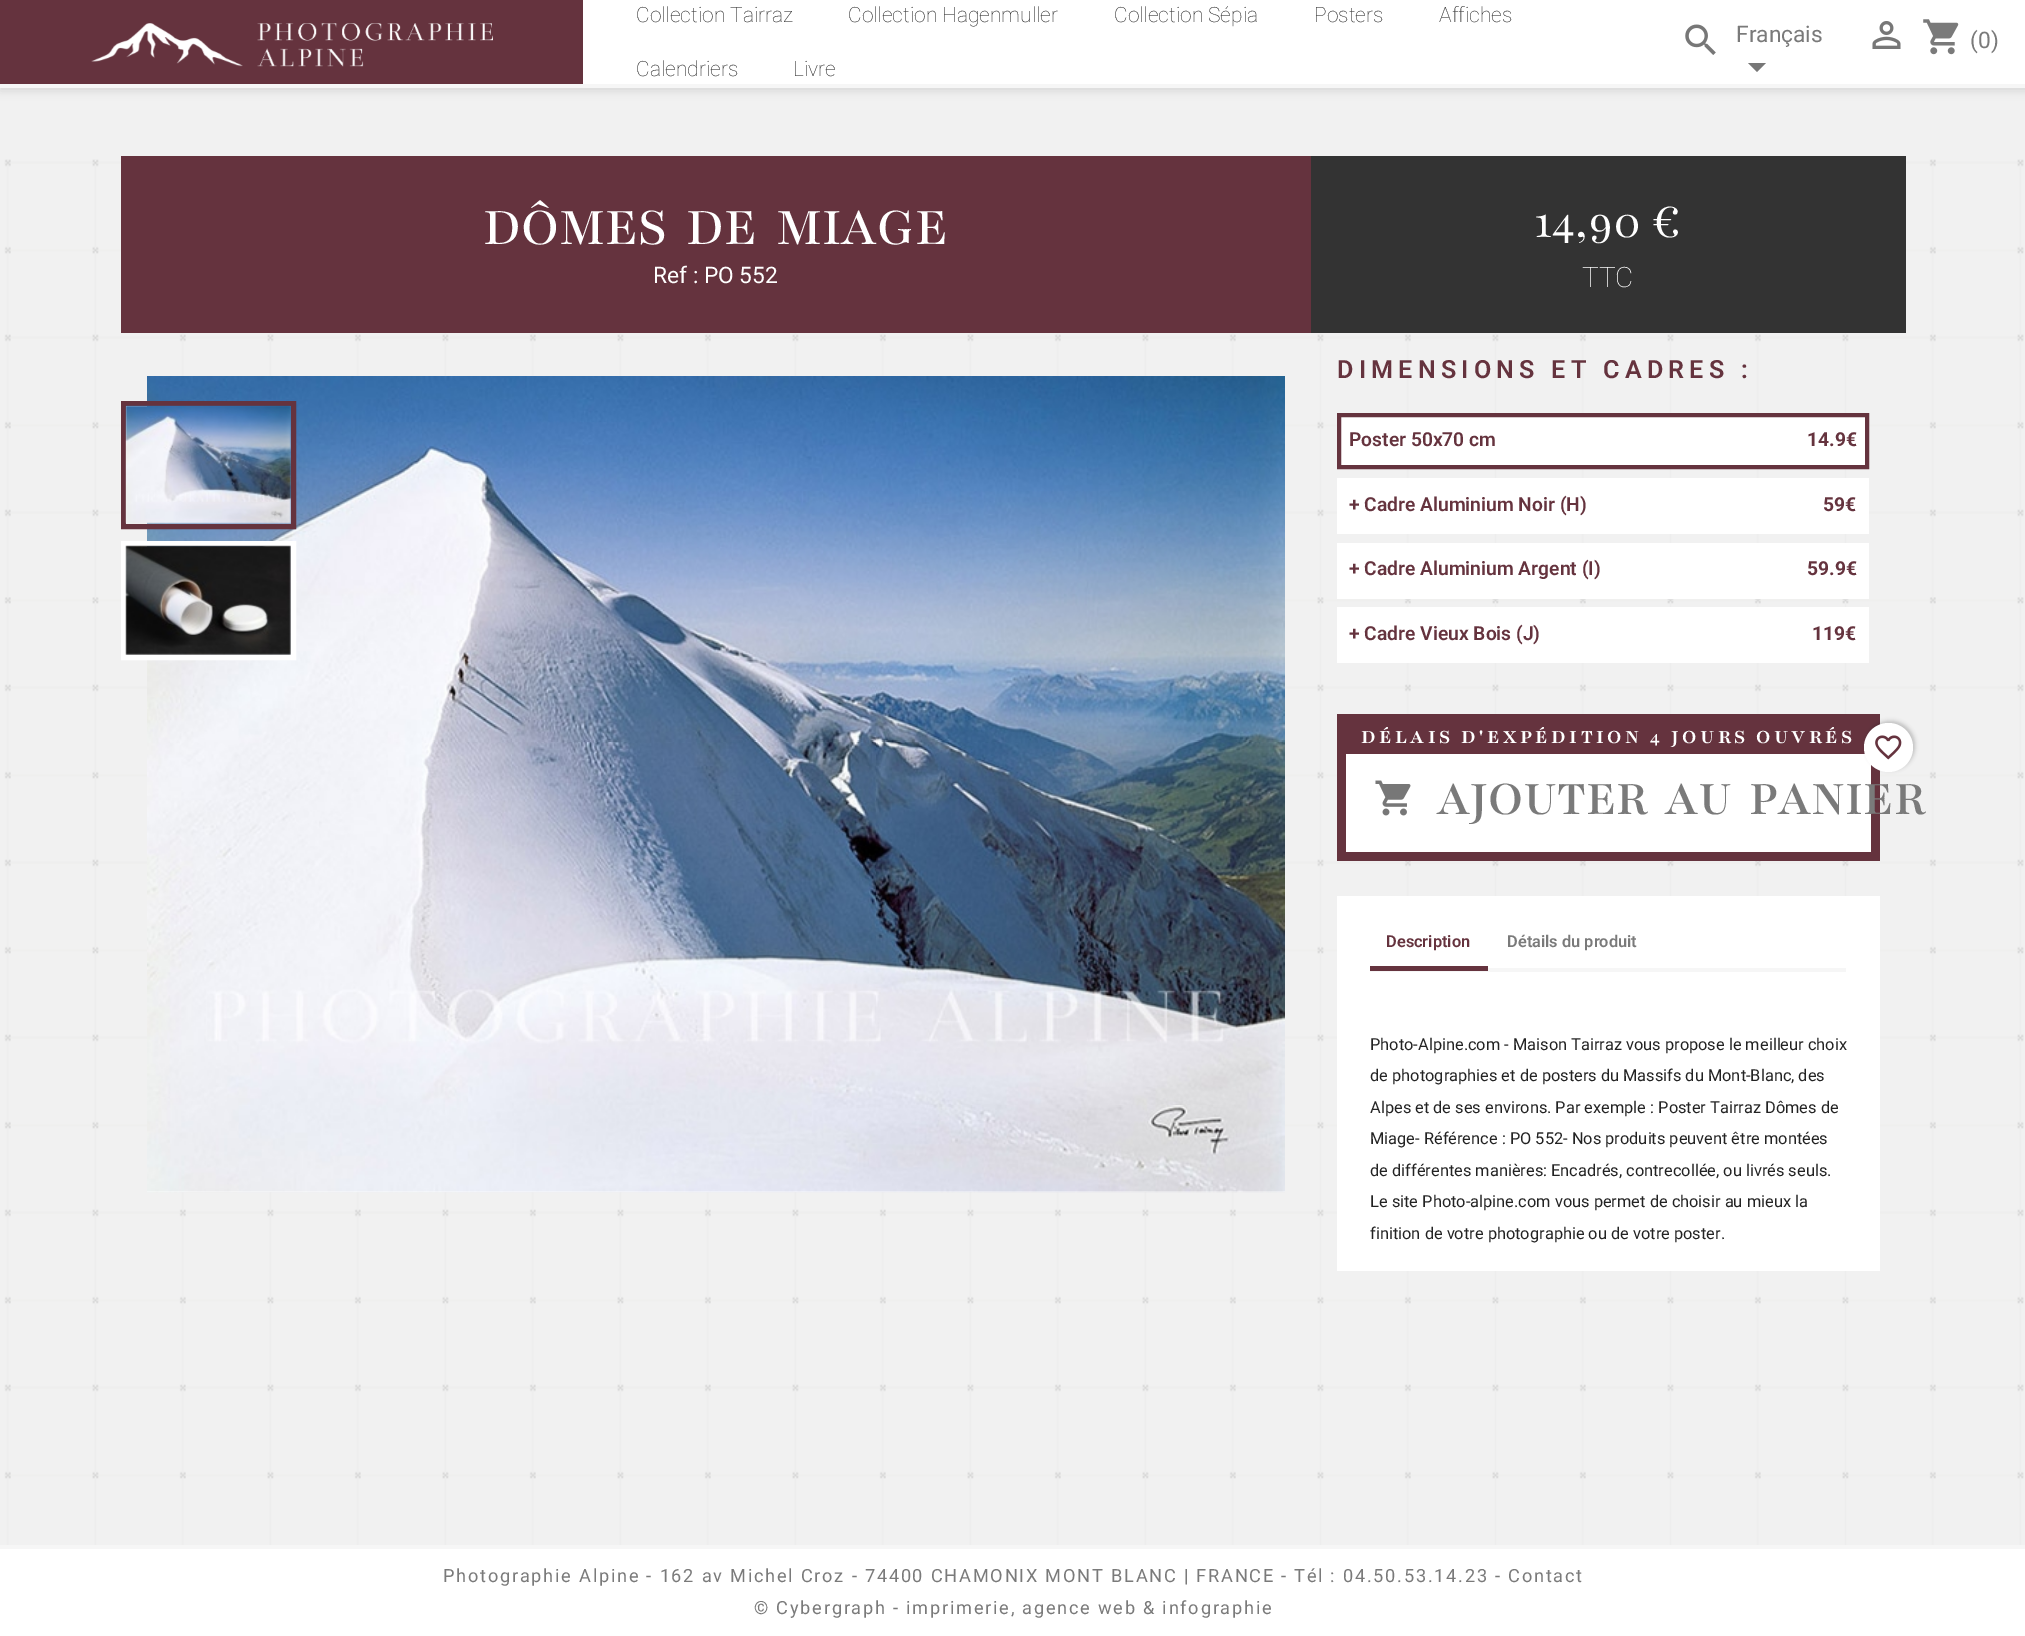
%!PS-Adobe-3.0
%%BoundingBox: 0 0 2025 1636
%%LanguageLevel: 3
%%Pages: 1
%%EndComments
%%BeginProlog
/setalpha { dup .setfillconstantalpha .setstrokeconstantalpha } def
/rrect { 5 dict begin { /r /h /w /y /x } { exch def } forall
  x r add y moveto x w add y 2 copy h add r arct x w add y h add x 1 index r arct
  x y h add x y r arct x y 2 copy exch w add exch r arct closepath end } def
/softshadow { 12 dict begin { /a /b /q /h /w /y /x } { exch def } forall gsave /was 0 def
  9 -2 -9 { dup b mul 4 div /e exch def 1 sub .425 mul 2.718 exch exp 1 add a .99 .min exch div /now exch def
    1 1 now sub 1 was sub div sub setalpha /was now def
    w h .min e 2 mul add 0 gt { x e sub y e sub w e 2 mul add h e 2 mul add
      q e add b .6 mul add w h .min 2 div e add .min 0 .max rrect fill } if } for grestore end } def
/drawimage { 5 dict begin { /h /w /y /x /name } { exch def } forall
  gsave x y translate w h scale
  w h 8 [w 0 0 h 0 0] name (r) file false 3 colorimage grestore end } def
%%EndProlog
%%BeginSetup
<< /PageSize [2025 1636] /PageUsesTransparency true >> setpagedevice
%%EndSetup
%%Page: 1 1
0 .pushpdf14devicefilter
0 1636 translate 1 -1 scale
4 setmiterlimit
0.945 setgray
0 0 2025 1636 rectfill
0 setgray
0 4 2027 87 0 4.5 0.11 softshadow
1 setgray
583 0 1442 84 rectfill
0.965 setgray
0 84 2025 4 rectfill
0.396 0.2 0.243 setrgbcolor
0 0 583 84 rectfill
(images/1.raw) 91 23 402 44 drawimage
(images/2.raw) 1685 24 31 31 drawimage
0.467 setgray
newpath 1748 63 moveto 1766 63 lineto 1757 72 lineto closepath fill
(images/3.raw) 1872 21 29 28 drawimage
(images/4.raw) 1923 19 36 36 drawimage
(images/5.raw) 4 159 2020 1386 drawimage
0.396 0.2 0.243 setrgbcolor
121 156 1190 177 rectfill
0.2 setgray
1311 156 595 177 rectfill
1 setgray
147 1191 1138 1 rectfill
(images/6.raw) 147 376 1138 817 drawimage
0.396 0.2 0.243 setrgbcolor
5 setlinewidth
123.5 403.5 170 123 rectstroke
(images/7.raw) 125 405 166 119 drawimage
1 setgray
123.5 543.5 170 114 rectstroke
(images/8.raw) 125 545 166 110 drawimage
newpath 1339 415 moveto 1867 415 lineto 1867 467 lineto 1339 467 lineto closepath gsave fill grestore
0.396 0.2 0.243 setrgbcolor
4 setlinewidth
stroke
1 setgray
1337 478 532 56 rectfill
1337 543 532 56 rectfill
1337 607 532 56 rectfill
0.396 0.2 0.243 setrgbcolor
1337 714 543 147 rectfill
1 setgray
1346 754 525 98 rectfill
0 setgray
1866 721 49 49 24.5 2 0.2 softshadow
1 setgray
newpath 1888.5 747.5 24.5 0 360 arc closepath fill
(images/9.raw) 1875 735 27 25 drawimage
(images/10.raw) 1375 780 36 36 drawimage
1337 896 543 375 rectfill
0.965 setgray
1370 968 476 4 rectfill
0.396 0.2 0.243 setrgbcolor
1370 966 118 5 rectfill
1 setgray
0 1549 2025 87 rectfill
0.965 setgray
0 1545 2025 4 rectfill
/Roboto-Thin [21 0 0 -21 0 0] selectfont
0.137 setgray
636 22 moveto (Collection Tairraz) show
848 22 moveto (Collection Hagenmuller) show
1114 22 moveto (Collection Sépia) show
1314 22 moveto (Posters) show
1439 22 moveto (Affiches) show
636 76 moveto (Calendriers) show
793 76 moveto (Livre) show
/Roboto-Regular [22.75 0 0 -22.75 0 0] selectfont
0.478 setgray
1736 42 moveto (Français) show
1970 48 moveto (\(0\)) show
/Playfair-Medium [57.75 0 0 -57.75 0 0] selectfont
1 setgray
483 244 moveto 7 0 32 (DÔMES DE MIAGE) widthshow
/Roboto-Regular [22.75 0 0 -22.75 0 0] selectfont
653 283 moveto (Ref : PO 552) show
/Playfair-Light [52.5 0 0 -52.5 0 0] selectfont
1534 237 moveto (14,90 €) show
/Roboto-Thin [28 0 0 -28 0 0] selectfont
1582 287 moveto (TTC) show
/Roboto-SemiBold [25.1 0 0 -25.1 0 0] selectfont
0.396 0.2 0.243 setrgbcolor
1337 378 moveto 5.25 0 (DIMENSIONS ET CADRES :) ashow
/Roboto-SemiBold [19.25 0 0 -19.25 0 0] selectfont
1349 446 moveto (Poster 50x70 cm) show
/Roboto-Bold [19.25 0 0 -19.25 0 0] selectfont
1807 446 moveto (14.9€) show
/Roboto-SemiBold [19.25 0 0 -19.25 0 0] selectfont
1349 511 moveto (+ Cadre Aluminium Noir \(H\)) show
/Roboto-Bold [19.25 0 0 -19.25 0 0] selectfont
1823 511 moveto (59€) show
/Roboto-SemiBold [19.25 0 0 -19.25 0 0] selectfont
1349 575 moveto (+ Cadre Aluminium Argent \(I\)) show
/Roboto-Bold [19.25 0 0 -19.25 0 0] selectfont
1807 575 moveto (59.9€) show
/Roboto-SemiBold [19.25 0 0 -19.25 0 0] selectfont
1349 640 moveto (+ Cadre Vieux Bois \(J\)) show
/Roboto-Bold [19.25 0 0 -19.25 0 0] selectfont
1812 640 moveto (119€) show
/Playfair-Bold [21 0 0 -21 0 0] selectfont
1 setgray
1361 743 moveto 3.5 0 (DÉLAIS D'EXPÉDITION 4 JOURS OUVRÉS) ashow
/Playfair-SemiBold [52.5 0 0 -52.5 0 0] selectfont
0.478 setgray
1437 814 moveto 7 0 32 (AJOUTER AU PANIER) widthshow
/Roboto-SemiBold [16.4 0 0 -16.4 0 0] selectfont
0.396 0.2 0.243 setrgbcolor
1386 947 moveto (Description) show
0.478 setgray
1507 947 moveto (Détails du produit) show
/Roboto-Regular [16.4 0 0 -16.4 0 0] selectfont
0.137 setgray
1370 1050 moveto (Photo-Alpine.com - Maison Tairraz vous propose le meilleur choix) show
1370 1081 moveto (de photographies et de posters du Massifs du Mont-Blanc, des) show
1370 1113 moveto (Alpes et de ses environs. Par exemple : Poster Tairraz Dômes de) show
1370 1144 moveto (Miage- Référence : PO 552- Nos produits peuvent être montées) show
1370 1176 moveto (de différentes manières: Encadrés, contrecollée, ou livrés seuls.) show
1370 1207 moveto (Le site Photo-alpine.com vous permet de choisir au mieux la) show
1370 1239 moveto (finition de votre photographie ou de votre poster.) show
/Roboto-Regular [18.2 0 0 -18.2 0 0] selectfont
0.478 setgray
443 1582 moveto 1.75 0 (Photographie Alpine - 162 av Michel Croz - 74400 CHAMONIX MONT BLANC | FRANCE) ashow
1281 1582 moveto 1.75 0 (- Tél : 04.50.53.14.23 - Contact) ashow
754 1614 moveto 1.75 0 (© Cybergraph - imprimerie, agence web & infographie) ashow
.poppdf14devicefilter showpage
%%EOF
